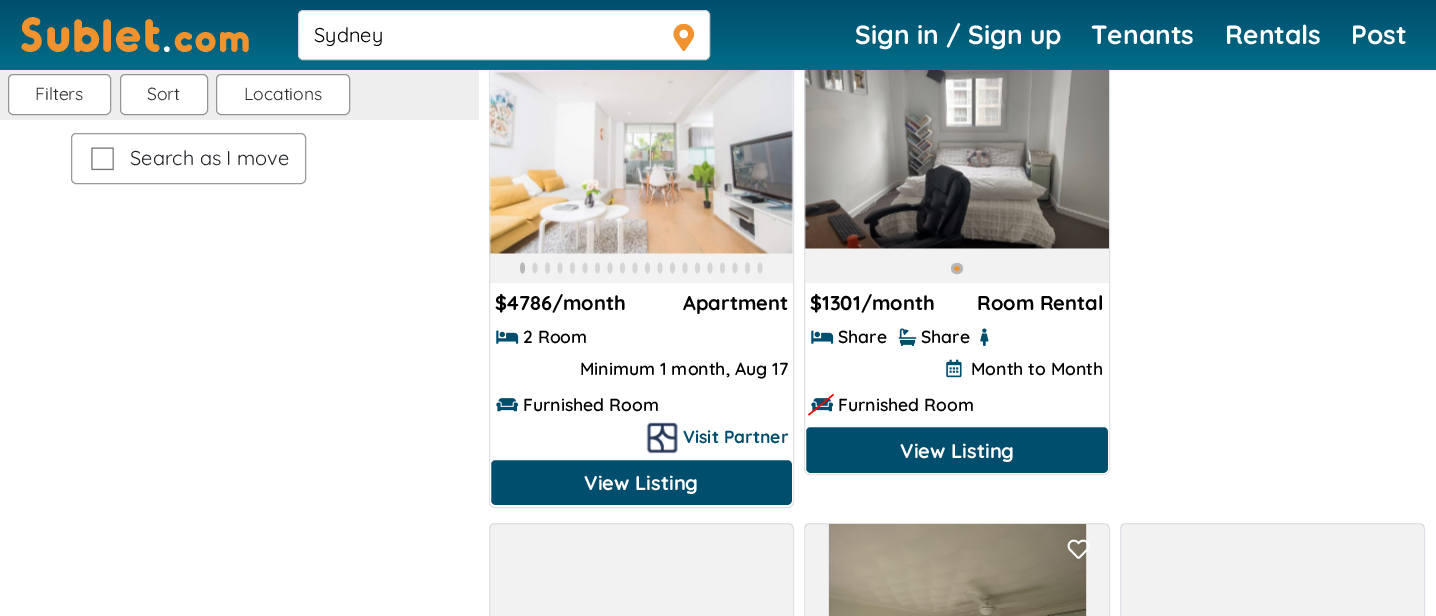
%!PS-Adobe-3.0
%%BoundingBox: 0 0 1436 616
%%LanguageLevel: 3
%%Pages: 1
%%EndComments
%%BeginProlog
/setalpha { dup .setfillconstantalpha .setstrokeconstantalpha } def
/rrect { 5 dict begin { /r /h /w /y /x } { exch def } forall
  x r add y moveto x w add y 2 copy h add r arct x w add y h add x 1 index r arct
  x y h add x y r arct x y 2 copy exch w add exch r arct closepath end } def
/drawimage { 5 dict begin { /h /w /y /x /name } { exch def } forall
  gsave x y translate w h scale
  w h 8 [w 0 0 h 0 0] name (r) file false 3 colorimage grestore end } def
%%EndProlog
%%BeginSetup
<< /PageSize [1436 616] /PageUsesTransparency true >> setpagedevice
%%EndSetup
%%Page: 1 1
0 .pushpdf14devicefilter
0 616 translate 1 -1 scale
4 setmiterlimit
1 setgray
0 0 1436 616 rectfill
0.871 0.886 0.902 setrgbcolor
489.5 24.5 304 483 5.5 rrect stroke
804.5 24.5 305 450 5.5 rrect stroke
gsave newpath 0 0 moveto 1436 0 lineto 1436 70 lineto 0 70 lineto closepath clip newpath
<< /ShadingType 2 /ColorSpace /DeviceRGB /Coords [0 0 0 70] /Extend [true true] /Function << /FunctionType 2 /Domain [0 1] /C0 [0 0.306 0.427] /C1 [0 0.427 0.529] /N 1 >> >> shfill grestore
1 setgray
298.5 10.5 411 49 4.5 rrect gsave fill grestore
0.827 setgray
stroke
(images/1.raw) 673 24 22 27 drawimage
0.933 setgray
0 70 479 50 rectfill
1 setgray
8.5 74.5 102 40 4.5 rrect gsave fill grestore
0.588 setgray
stroke
1 setgray
120.5 74.5 87 40 4.5 rrect gsave fill grestore
0.588 setgray
stroke
1 setgray
216.5 74.5 133 40 4.5 rrect gsave fill grestore
0.588 setgray
stroke
0.604 0.6 0.6 setrgbcolor
71.5 133.5 234 50 4.5 rrect stroke
(images/2.raw) 91 147 23 24 drawimage
0.2 setalpha
0.757 0.753 0.753 setrgbcolor
490 70 303 213 rectfill
1 setalpha
(images/3.raw) 489 70 304 184 drawimage
0.718 setgray
newpath 522.5 262.5 moveto 524 262.5 525 265 525 268 curveto 525 271 524 273.5 522.5 273.5 curveto 521 273.5 520 271 520 268 curveto 520 265 521 262.5 522.5 262.5 curveto closepath fill
0.835 setgray
newpath 535 262.5 moveto 536.5 262.5 537.5 265 537.5 268 curveto 537.5 271 536.5 273.5 535 273.5 curveto 533.5 273.5 532.5 271 532.5 268 curveto 532.5 265 533.5 262.5 535 262.5 curveto closepath fill
newpath 547.5 262.5 moveto 549 262.5 550 265 550 268 curveto 550 271 549 273.5 547.5 273.5 curveto 546 273.5 545 271 545 268 curveto 545 265 546 262.5 547.5 262.5 curveto closepath fill
newpath 560 262.5 moveto 561.5 262.5 562.5 265 562.5 268 curveto 562.5 271 561.5 273.5 560 273.5 curveto 558.5 273.5 557.5 271 557.5 268 curveto 557.5 265 558.5 262.5 560 262.5 curveto closepath fill
newpath 572.5 262.5 moveto 574 262.5 575 265 575 268 curveto 575 271 574 273.5 572.5 273.5 curveto 571 273.5 570 271 570 268 curveto 570 265 571 262.5 572.5 262.5 curveto closepath fill
newpath 585 262.5 moveto 586.5 262.5 587.5 265 587.5 268 curveto 587.5 271 586.5 273.5 585 273.5 curveto 583.5 273.5 582.5 271 582.5 268 curveto 582.5 265 583.5 262.5 585 262.5 curveto closepath fill
newpath 597.5 262.5 moveto 599 262.5 600 265 600 268 curveto 600 271 599 273.5 597.5 273.5 curveto 596 273.5 595 271 595 268 curveto 595 265 596 262.5 597.5 262.5 curveto closepath fill
newpath 610 262.5 moveto 611.5 262.5 612.5 265 612.5 268 curveto 612.5 271 611.5 273.5 610 273.5 curveto 608.5 273.5 607.5 271 607.5 268 curveto 607.5 265 608.5 262.5 610 262.5 curveto closepath fill
newpath 622.5 262.5 moveto 624 262.5 625 265 625 268 curveto 625 271 624 273.5 622.5 273.5 curveto 621 273.5 620 271 620 268 curveto 620 265 621 262.5 622.5 262.5 curveto closepath fill
newpath 635 262.5 moveto 636.5 262.5 637.5 265 637.5 268 curveto 637.5 271 636.5 273.5 635 273.5 curveto 633.5 273.5 632.5 271 632.5 268 curveto 632.5 265 633.5 262.5 635 262.5 curveto closepath fill
newpath 647.5 262.5 moveto 649 262.5 650 265 650 268 curveto 650 271 649 273.5 647.5 273.5 curveto 646 273.5 645 271 645 268 curveto 645 265 646 262.5 647.5 262.5 curveto closepath fill
newpath 660 262.5 moveto 661.5 262.5 662.5 265 662.5 268 curveto 662.5 271 661.5 273.5 660 273.5 curveto 658.5 273.5 657.5 271 657.5 268 curveto 657.5 265 658.5 262.5 660 262.5 curveto closepath fill
newpath 672.5 262.5 moveto 674 262.5 675 265 675 268 curveto 675 271 674 273.5 672.5 273.5 curveto 671 273.5 670 271 670 268 curveto 670 265 671 262.5 672.5 262.5 curveto closepath fill
newpath 685 262.5 moveto 686.5 262.5 687.5 265 687.5 268 curveto 687.5 271 686.5 273.5 685 273.5 curveto 683.5 273.5 682.5 271 682.5 268 curveto 682.5 265 683.5 262.5 685 262.5 curveto closepath fill
newpath 697.5 262.5 moveto 699 262.5 700 265 700 268 curveto 700 271 699 273.5 697.5 273.5 curveto 696 273.5 695 271 695 268 curveto 695 265 696 262.5 697.5 262.5 curveto closepath fill
newpath 710 262.5 moveto 711.5 262.5 712.5 265 712.5 268 curveto 712.5 271 711.5 273.5 710 273.5 curveto 708.5 273.5 707.5 271 707.5 268 curveto 707.5 265 708.5 262.5 710 262.5 curveto closepath fill
newpath 722.5 262.5 moveto 724 262.5 725 265 725 268 curveto 725 271 724 273.5 722.5 273.5 curveto 721 273.5 720 271 720 268 curveto 720 265 721 262.5 722.5 262.5 curveto closepath fill
newpath 735 262.5 moveto 736.5 262.5 737.5 265 737.5 268 curveto 737.5 271 736.5 273.5 735 273.5 curveto 733.5 273.5 732.5 271 732.5 268 curveto 732.5 265 733.5 262.5 735 262.5 curveto closepath fill
newpath 747.5 262.5 moveto 749 262.5 750 265 750 268 curveto 750 271 749 273.5 747.5 273.5 curveto 746 273.5 745 271 745 268 curveto 745 265 746 262.5 747.5 262.5 curveto closepath fill
newpath 760 262.5 moveto 761.5 262.5 762.5 265 762.5 268 curveto 762.5 271 761.5 273.5 760 273.5 curveto 758.5 273.5 757.5 271 757.5 268 curveto 757.5 265 758.5 262.5 760 262.5 curveto closepath fill
(images/4.raw) 496 330 23 14 drawimage
(images/5.raw) 496 398 23 14 drawimage
(images/6.raw) 646 422 32 32 drawimage
0 0.306 0.427 setrgbcolor
490.5 459.5 302 46 4.5 rrect gsave fill grestore
1 setgray
stroke
0.2 setalpha
0.757 0.753 0.753 setrgbcolor
805 70 304 213 rectfill
1 setalpha
(images/7.raw) 804 70 305 179 drawimage
0.941 0.573 0.18 setrgbcolor
952.5 264.5 9 8 4 rrect gsave fill grestore
0.718 setgray
3 setlinewidth
stroke
(images/4.raw) 811 330 23 14 drawimage
(images/8.raw) 898 328 19 18 drawimage
(images/9.raw) 980 328 9 18 drawimage
(images/10.raw) 946 359 16 19 drawimage
(images/5.raw) 811 398 23 14 drawimage
1 0 0 setrgbcolor
newpath 834 395 moveto 809 415.5 lineto 808 414.5 lineto 833 394 lineto closepath fill
0 0.306 0.427 setrgbcolor
805.5 426.5 303 47 4.5 rrect gsave fill grestore
1 setgray
1 setlinewidth
stroke
0.871 0.886 0.902 setrgbcolor
489.5 523.5 304 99 5.5 rrect stroke
0.2 setalpha
0.757 0.753 0.753 setrgbcolor
490 524 303 92 rectfill
1 setalpha
0.871 0.886 0.902 setrgbcolor
804.5 523.5 305 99 5.5 rrect stroke
0.2 setalpha
0.757 0.753 0.753 setrgbcolor
805 524 304 92 rectfill
1 setalpha
(images/11.raw) 828 524 259 92 drawimage
(images/12.raw) 1067 539 23 20 drawimage
0.871 0.886 0.902 setrgbcolor
1120.5 523.5 304 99 5.5 rrect stroke
0.2 setalpha
0.757 0.753 0.753 setrgbcolor
1121 524 303 92 rectfill
/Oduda-Bold [50 0 0 -50 0 0] selectfont
1 setalpha
0.941 0.573 0.18 setrgbcolor
20 52 moveto 2.5 0 (Sublet) ashow
/Oduda-Bold [40 0 0 -40 0 0] selectfont
1 setgray
163 52 moveto 2.5 0 (.) ashow
0.941 0.573 0.18 setrgbcolor
174 52 moveto 2.5 0 (com) ashow
/Quicksand-Regular [20 0 0 -20 0 0] selectfont
0 setgray
314 42 moveto (Sydney) show
/Quicksand-Bold [26.25 0 0 -26.25 0 0] selectfont
1 setgray
855 44 moveto (Sign in / Sign up) show
1091 44 moveto (Tenants) show
1225 44 moveto (Rentals) show
1351 44 moveto (Post) show
/Quicksand-Regular [17.5 0 0 -17.5 0 0] selectfont
0.184 0.173 0.173 setrgbcolor
35 100 moveto (Filters) show
147 100 moveto (Sort) show
244 100 moveto (Locations) show
/Quicksand-Regular [20 0 0 -20 0 0] selectfont
0.129 0.145 0.161 setrgbcolor
130 165 moveto (Search as I move) show
/Quicksand-Bold [20 0 0 -20 0 0] selectfont
0 setgray
495 310 moveto ($4786/month) show
683 310 moveto (Apartment) show
/Quicksand-SemiBold [17.5 0 0 -17.5 0 0] selectfont
523 343 moveto (2 Room) show
580 375 moveto (Minimum 1 month, Aug 17) show
523 411 moveto (Furnished Room) show
/Quicksand-Bold [17.5 0 0 -17.5 0 0] selectfont
0 0.306 0.427 setrgbcolor
683 443 moveto (Visit Partner) show
/Quicksand-Bold [20 0 0 -20 0 0] selectfont
1 setgray
584 490 moveto (View Listing) show
0 setgray
810 310 moveto ($1301/month) show
977 310 moveto (Room Rental) show
/Quicksand-SemiBold [17.5 0 0 -17.5 0 0] selectfont
838 343 moveto (Share) show
921 343 moveto (Share) show
971 375 moveto (Month to Month) show
838 411 moveto (Furnished Room) show
/Quicksand-Bold [20 0 0 -20 0 0] selectfont
1 setgray
900 458 moveto (View Listing) show
.poppdf14devicefilter showpage
%%EOF
